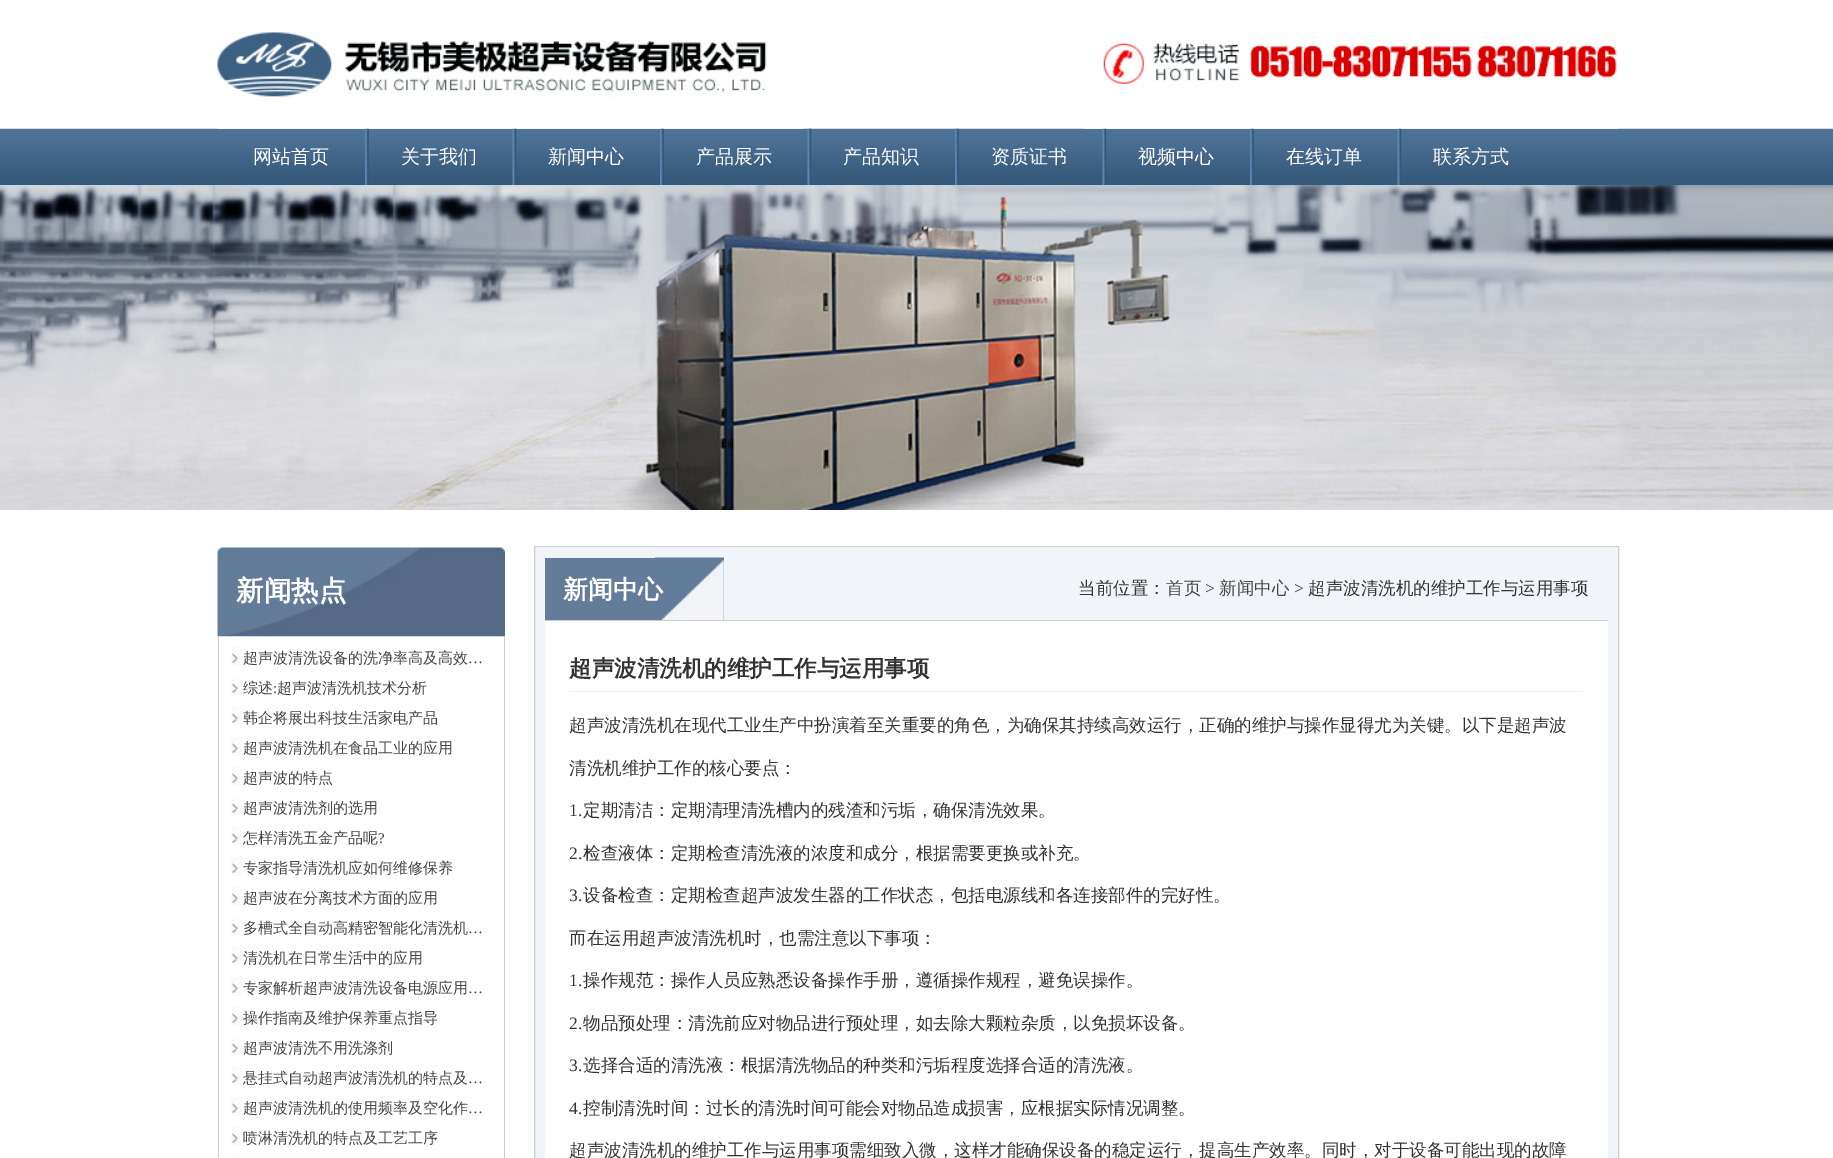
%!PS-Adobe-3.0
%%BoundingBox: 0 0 1833 1158
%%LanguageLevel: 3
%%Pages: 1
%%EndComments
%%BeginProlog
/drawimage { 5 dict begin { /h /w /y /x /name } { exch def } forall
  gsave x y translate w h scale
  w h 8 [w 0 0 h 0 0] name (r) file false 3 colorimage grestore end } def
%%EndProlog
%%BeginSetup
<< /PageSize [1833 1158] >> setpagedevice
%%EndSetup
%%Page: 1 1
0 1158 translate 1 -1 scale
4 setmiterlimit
1 setgray
0 0 1833 1158 rectfill
(images/3.raw) 0 128 1833 57 drawimage
(images/1.raw) 217 30 586 99 drawimage
(images/2.raw) 1083 43 535 86 drawimage
(images/4.raw) 365 128 4 57 drawimage
(images/5.raw) 512 128 5 57 drawimage
(images/4.raw) 660 128 4 57 drawimage
(images/6.raw) 807 128 5 57 drawimage
(images/7.raw) 955 128 4 57 drawimage
(images/5.raw) 1102 128 5 57 drawimage
(images/4.raw) 1250 128 4 57 drawimage
(images/5.raw) 1397 128 5 57 drawimage
(images/8.raw) 0 185 1833 325 drawimage
(images/9.raw) 217 547 288 90 drawimage
0.8 setgray
504 636 1 522 rectfill
218 636 1 522 rectfill
(images/10.raw) 231 646 11 20 drawimage
(images/10.raw) 231 676 11 20 drawimage
(images/10.raw) 231 706 11 20 drawimage
(images/10.raw) 231 736 11 20 drawimage
(images/10.raw) 231 766 11 20 drawimage
(images/10.raw) 231 796 11 20 drawimage
(images/10.raw) 231 826 11 20 drawimage
(images/10.raw) 231 856 11 20 drawimage
(images/10.raw) 231 886 11 20 drawimage
(images/10.raw) 231 916 11 20 drawimage
(images/10.raw) 231 946 11 20 drawimage
(images/10.raw) 231 976 11 20 drawimage
(images/10.raw) 231 1006 11 20 drawimage
(images/10.raw) 231 1036 11 20 drawimage
(images/10.raw) 231 1066 11 20 drawimage
(images/10.raw) 231 1096 11 20 drawimage
(images/10.raw) 231 1126 11 20 drawimage
(images/11.raw) 231 1156 8 2 drawimage
0.945 0.957 0.973 setrgbcolor
10 setlinewidth
540 553 1073 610 rectstroke
724 558 884 62 rectfill
0.8 setgray
545 620 1063 1 rectfill
0.388 0.486 0.604 setrgbcolor
545 558 179 62 rectfill
(images/12.raw) 655 557 69 63 drawimage
0.945 setgray
570 691 1013 1 rectfill
0.8 setgray
1 setlinewidth
534.5 546.5 1084 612 rectstroke
/WenQuanYiZenHei-Medium [19 0 0 -19 0 0] selectfont
1 setgray
253 163 moveto (网站首页) show
401 163 moveto (关于我们) show
548 163 moveto (新闻中心) show
696 163 moveto (产品展示) show
843 163 moveto (产品知识) show
991 163 moveto (资质证书) show
1138 163 moveto (视频中心) show
1286 163 moveto (在线订单) show
1433 163 moveto (联系方式) show
/WenQuanYiZenHei-Bold [27.5 0 0 -27.5 0 0] selectfont
236 600 moveto (新闻热点) show
/WenQuanYiZenHei-Medium [15 0 0 -15 0 0] selectfont
0.267 setgray
243 663 moveto (超声波清洗设备的洗净率高及高效) show
/LiberationSerif-Regular [15 0 0 -15 0 0] selectfont
468 663 moveto (…) show
/WenQuanYiZenHei-Medium [15 0 0 -15 0 0] selectfont
243 693 moveto (综述) show
/LiberationSerif-Regular [15 0 0 -15 0 0] selectfont
273 693 moveto (:) show
/WenQuanYiZenHei-Medium [15 0 0 -15 0 0] selectfont
277 693 moveto (超声波清洗机技术分析) show
243 723 moveto (韩企将展出科技生活家电产品) show
243 753 moveto (超声波清洗机在食品工业的应用) show
243 783 moveto (超声波的特点) show
243 813 moveto (超声波清洗剂的选用) show
243 843 moveto (怎样清洗五金产品呢) show
/LiberationSerif-Regular [15 0 0 -15 0 0] selectfont
378 843 moveto (?) show
/WenQuanYiZenHei-Medium [15 0 0 -15 0 0] selectfont
243 873 moveto (专家指导清洗机应如何维修保养) show
243 903 moveto (超声波在分离技术方面的应用) show
243 933 moveto (多槽式全自动高精密智能化清洗机) show
/LiberationSerif-Regular [15 0 0 -15 0 0] selectfont
468 933 moveto (…) show
/WenQuanYiZenHei-Medium [15 0 0 -15 0 0] selectfont
243 963 moveto (清洗机在日常生活中的应用) show
243 993 moveto (专家解析超声波清洗设备电源应用) show
/LiberationSerif-Regular [15 0 0 -15 0 0] selectfont
468 993 moveto (…) show
/WenQuanYiZenHei-Medium [15 0 0 -15 0 0] selectfont
243 1023 moveto (操作指南及维护保养重点指导) show
243 1053 moveto (超声波清洗不用洗涤剂) show
243 1083 moveto (悬挂式自动超声波清洗机的特点及) show
/LiberationSerif-Regular [15 0 0 -15 0 0] selectfont
468 1083 moveto (…) show
/WenQuanYiZenHei-Medium [15 0 0 -15 0 0] selectfont
243 1113 moveto (超声波清洗机的使用频率及空化作) show
/LiberationSerif-Regular [15 0 0 -15 0 0] selectfont
468 1113 moveto (…) show
/WenQuanYiZenHei-Medium [15 0 0 -15 0 0] selectfont
243 1143 moveto (喷淋清洗机的特点及工艺工序) show
/WenQuanYiZenHei-Bold [25 0 0 -25 0 0] selectfont
1 setgray
563 598 moveto (新闻中心) show
/WenQuanYiZenHei-Medium [17.5 0 0 -17.5 0 0] selectfont
0.2 setgray
1078 594 moveto (当前位置：) show
0.267 setgray
1166 594 moveto (首页) show
/LiberationSerif-Regular [17.5 0 0 -17.5 0 0] selectfont
0.2 setgray
1205 594 moveto (>) show
/WenQuanYiZenHei-Medium [17.5 0 0 -17.5 0 0] selectfont
0.267 setgray
1219 594 moveto (新闻中心) show
/LiberationSerif-Regular [17.5 0 0 -17.5 0 0] selectfont
0.2 setgray
1294 594 moveto (>) show
/WenQuanYiZenHei-Medium [17.5 0 0 -17.5 0 0] selectfont
1308 594 moveto (超声波清洗机的维护工作与运用事项) show
/WenQuanYiZenHei-Bold [22.5 0 0 -22.5 0 0] selectfont
569 676 moveto (超声波清洗机的维护工作与运用事项) show
/WenQuanYiZenHei-Medium [17.5 0 0 -17.5 0 0] selectfont
569 731 moveto (超声波清洗机在现代工业生产中扮演着至关重要的角色，为确保其持续高效运行，正确的维护与操作显得尤为关键。以下是超声波) show
569 774 moveto (清洗机维护工作的核心要点：) show
/LiberationSerif-Regular [17.5 0 0 -17.5 0 0] selectfont
569 816 moveto (1.) show
/WenQuanYiZenHei-Medium [17.5 0 0 -17.5 0 0] selectfont
583 816 moveto (定期清洁：定期清理清洗槽内的残渣和污垢，确保清洗效果。) show
/LiberationSerif-Regular [17.5 0 0 -17.5 0 0] selectfont
569 859 moveto (2.) show
/WenQuanYiZenHei-Medium [17.5 0 0 -17.5 0 0] selectfont
583 859 moveto (检查液体：定期检查清洗液的浓度和成分，根据需要更换或补充。) show
/LiberationSerif-Regular [17.5 0 0 -17.5 0 0] selectfont
569 901 moveto (3.) show
/WenQuanYiZenHei-Medium [17.5 0 0 -17.5 0 0] selectfont
583 901 moveto (设备检查：定期检查超声波发生器的工作状态，包括电源线和各连接部件的完好性。) show
569 944 moveto (而在运用超声波清洗机时，也需注意以下事项：) show
/LiberationSerif-Regular [17.5 0 0 -17.5 0 0] selectfont
569 986 moveto (1.) show
/WenQuanYiZenHei-Medium [17.5 0 0 -17.5 0 0] selectfont
583 986 moveto (操作规范：操作人员应熟悉设备操作手册，遵循操作规程，避免误操作。) show
/LiberationSerif-Regular [17.5 0 0 -17.5 0 0] selectfont
569 1029 moveto (2.) show
/WenQuanYiZenHei-Medium [17.5 0 0 -17.5 0 0] selectfont
583 1029 moveto (物品预处理：清洗前应对物品进行预处理，如去除大颗粒杂质，以免损坏设备。) show
/LiberationSerif-Regular [17.5 0 0 -17.5 0 0] selectfont
569 1071 moveto (3.) show
/WenQuanYiZenHei-Medium [17.5 0 0 -17.5 0 0] selectfont
583 1071 moveto (选择合适的清洗液：根据清洗物品的种类和污垢程度选择合适的清洗液。) show
/LiberationSerif-Regular [17.5 0 0 -17.5 0 0] selectfont
569 1114 moveto (4.) show
/WenQuanYiZenHei-Medium [17.5 0 0 -17.5 0 0] selectfont
583 1114 moveto (控制清洗时间：过长的清洗时间可能会对物品造成损害，应根据实际情况调整。) show
569 1156 moveto (超声波清洗机的维护工作与运用事项需细致入微，这样才能确保设备的稳定运行，提高生产效率。同时，对于设备可能出现的故障) show
showpage
%%EOF
